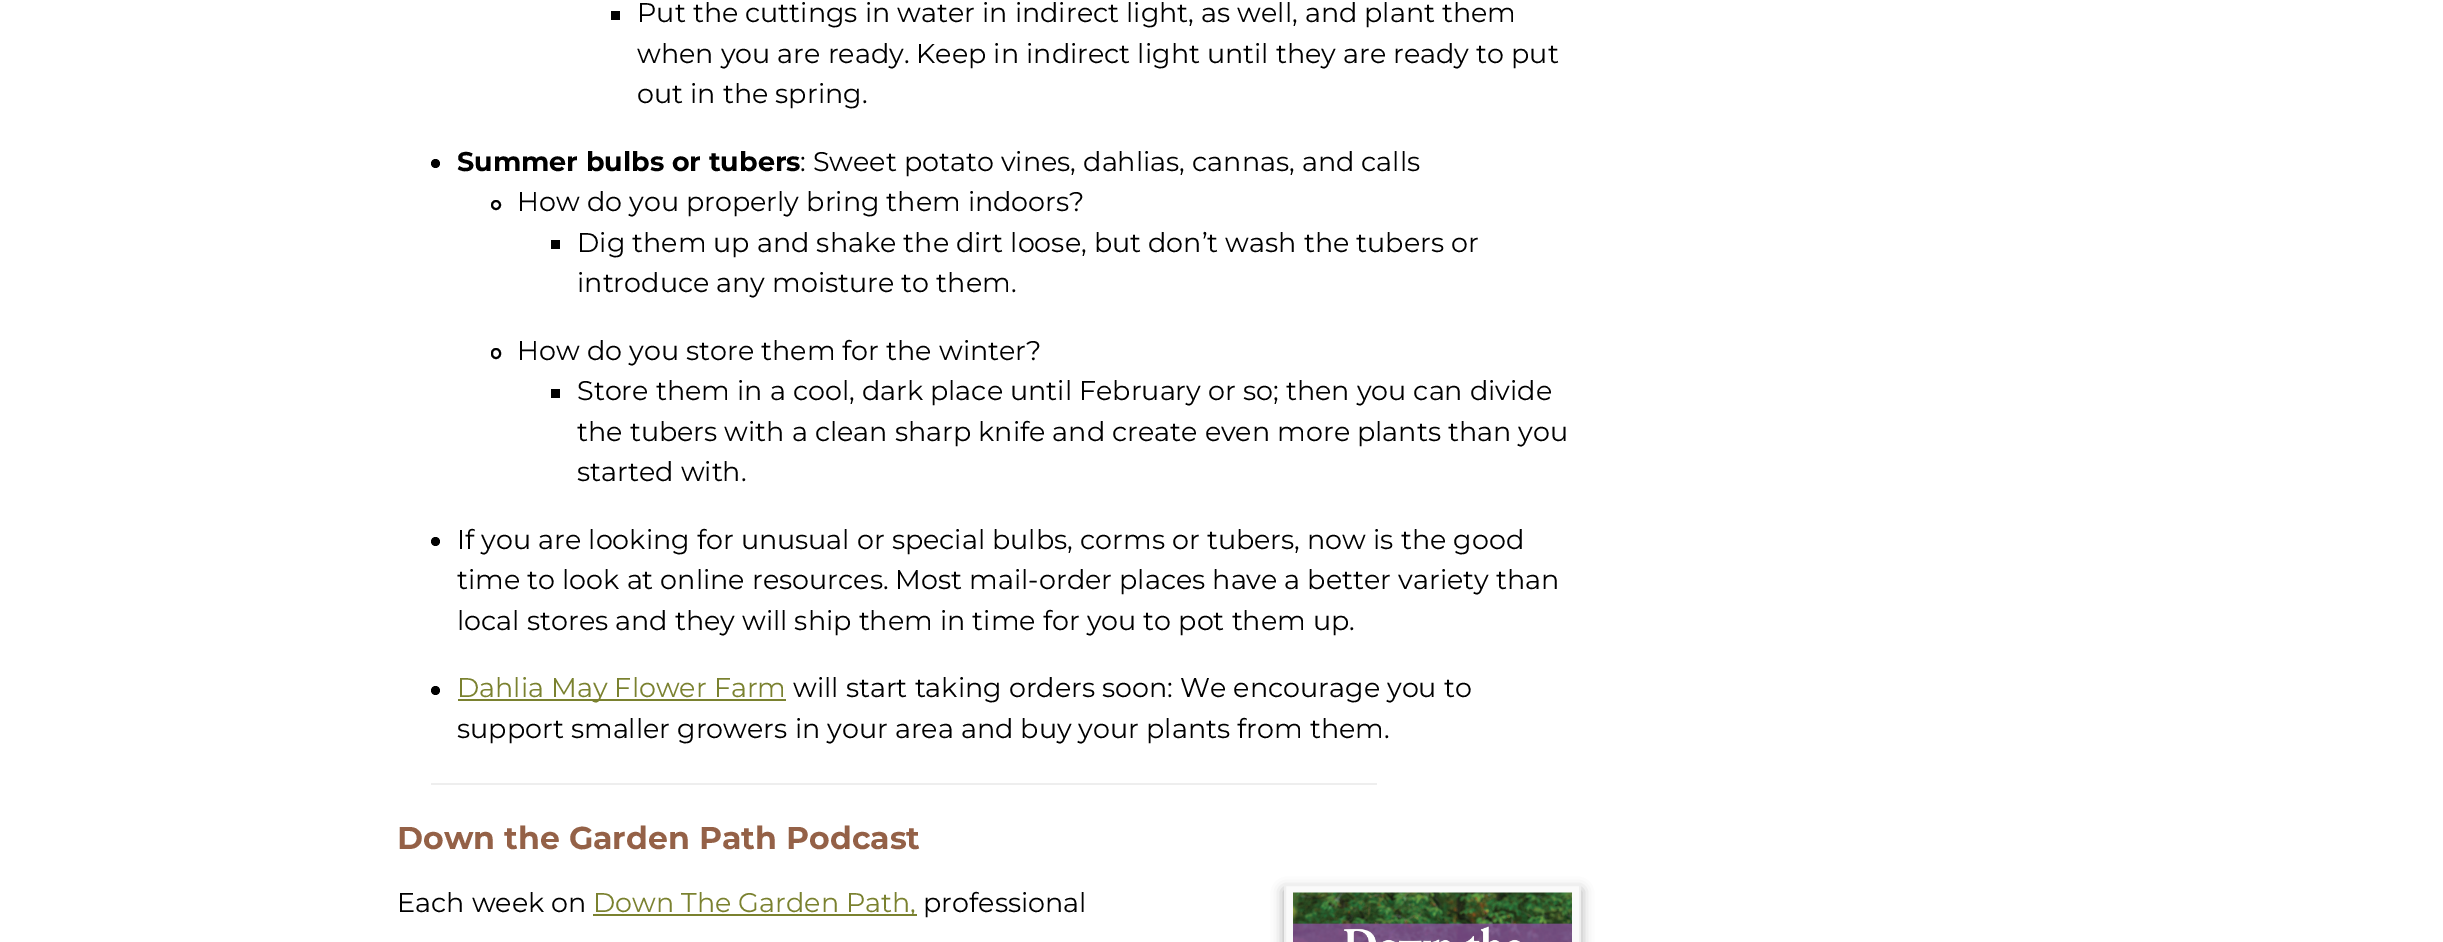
%!PS-Adobe-3.0
%%BoundingBox: 0 0 2443 942
%%LanguageLevel: 3
%%Pages: 1
%%EndComments
%%BeginProlog
/setalpha { dup .setfillconstantalpha .setstrokeconstantalpha } def
/rrect { 5 dict begin { /r /h /w /y /x } { exch def } forall
  x r add y moveto x w add y 2 copy h add r arct x w add y h add x 1 index r arct
  x y h add x y r arct x y 2 copy exch w add exch r arct closepath end } def
/softshadow { 12 dict begin { /a /b /q /h /w /y /x } { exch def } forall gsave /was 0 def
  9 -2 -9 { dup b mul 4 div /e exch def 1 sub .425 mul 2.718 exch exp 1 add a .99 .min exch div /now exch def
    1 1 now sub 1 was sub div sub setalpha /was now def
    w h .min e 2 mul add 0 gt { x e sub y e sub w e 2 mul add h e 2 mul add
      q e add b .6 mul add w h .min 2 div e add .min 0 .max rrect fill } if } for grestore end } def
/drawimage { 5 dict begin { /h /w /y /x /name } { exch def } forall
  gsave x y translate w h scale
  w h 8 [w 0 0 h 0 0] name (r) file false 3 colorimage grestore end } def
%%EndProlog
%%BeginSetup
<< /PageSize [2443 942] /PageUsesTransparency true >> setpagedevice
%%EndSetup
%%Page: 1 1
0 .pushpdf14devicefilter
0 942 translate 1 -1 scale
4 setmiterlimit
1 setgray
0 0 2443 942 rectfill
0 setgray
611 11 9 9 rectfill
newpath 435.5 163.5 4.5 0 360 arc closepath fill
2 setlinewidth
newpath 496 205 4 0 360 arc closepath stroke
551 240 9 9 rectfill
492 349 8 9 4 rrect stroke
551 389 9 9 rectfill
newpath 435.5 541.5 4.5 0 360 arc closepath fill
newpath 435.5 690.5 4.5 0 360 arc closepath fill
0.478 0.506 0.184 setrgbcolor
458 699 328 2 rectfill
0.933 setgray
431 783 946 2 rectfill
0.478 0.506 0.184 setrgbcolor
593 914 324 2 rectfill
0 setgray
1284 890 297 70 0 6 0.35 softshadow
0.98 setgray
newpath 1285 885 moveto 1580 885 lineto 1580 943 lineto 1285 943 lineto closepath gsave fill grestore
0.937 setgray
stroke
(images/1.raw) 1293 892 279 50 drawimage
/Montserrat-Regular [27 0 0 -27 0 0] selectfont
0 setgray
637 22 moveto (Put the cuttings in water in indirect light, as well, and plant them) show
637 63 moveto (when you are ready. Keep in indirect light until they are ready to put) show
637 103 moveto (out in the spring.) show
/Montserrat-Bold [27 0 0 -27 0 0] selectfont
457 171 moveto (Summer bulbs or tubers) show
/Montserrat-Regular [27 0 0 -27 0 0] selectfont
800 171 moveto (: Sweet potato vines, dahlias, cannas, and calls) show
517 211 moveto (How do you properly bring them indoors?) show
577 252 moveto (Dig them up and shake the dirt loose, but don’t wash the tubers or) show
577 292 moveto (introduce any moisture to them.) show
517 360 moveto (How do you store them for the winter?) show
577 400 moveto (Store them in a cool, dark place until February or so; then you can divide) show
577 441 moveto (the tubers with a clean sharp knife and create even more plants than you) show
577 481 moveto (started with.) show
457 549 moveto (If you are looking for unusual or special bulbs, corms or tubers, now is the good) show
457 589 moveto (time to look at online resources. Most mail-order places have a better variety than) show
457 630 moveto (local stores and they will ship them in time for you to pot them up.) show
0.478 0.506 0.184 setrgbcolor
457 697 moveto (Dahlia May Flower Farm) show
0 setgray
793 697 moveto (will start taking orders soon: We encourage you to) show
457 738 moveto (support smaller growers in your area and buy your plants from them.) show
/Montserrat-Bold [31.6 0 0 -31.6 0 0] selectfont
0.58 0.38 0.278 setrgbcolor
397 849 moveto (Down the Garden Path Podcast) show
/Montserrat-Regular [27 0 0 -27 0 0] selectfont
0 setgray
397 912 moveto (Each week on) show
0.478 0.506 0.184 setrgbcolor
593 912 moveto (Down The Garden Path,) show
0 setgray
923 912 moveto (professional) show
.poppdf14devicefilter showpage
%%EOF
